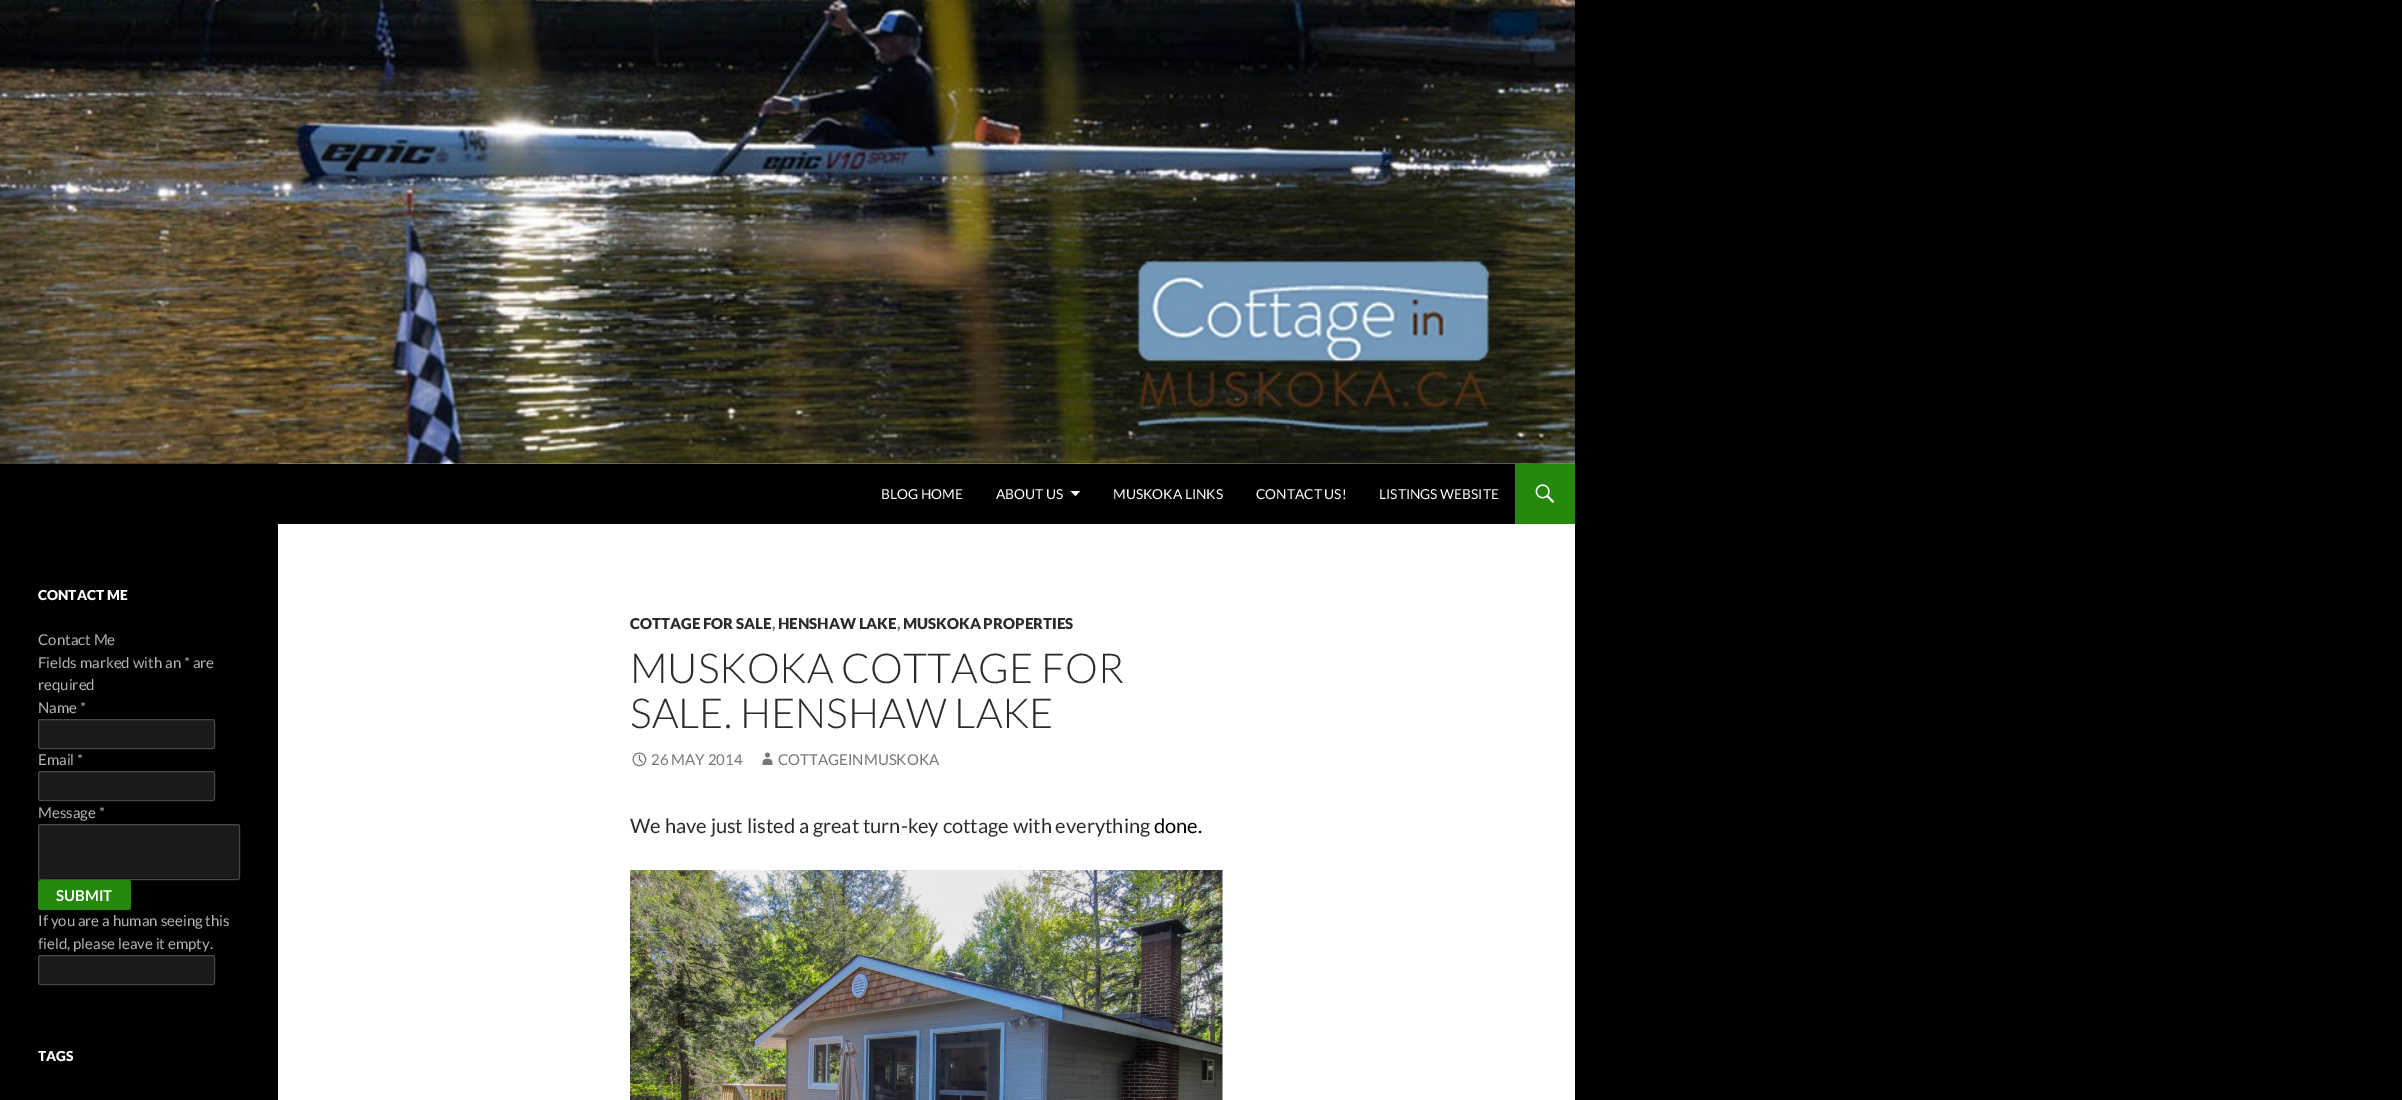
%!PS-Adobe-3.0
%%BoundingBox: 0 0 2402 1100
%%LanguageLevel: 3
%%Pages: 1
%%EndComments
%%BeginProlog
/setalpha { dup .setfillconstantalpha .setstrokeconstantalpha } def
/rrect { 5 dict begin { /r /h /w /y /x } { exch def } forall
  x r add y moveto x w add y 2 copy h add r arct x w add y h add x 1 index r arct
  x y h add x y r arct x y 2 copy exch w add exch r arct closepath end } def
/drawimage { 5 dict begin { /h /w /y /x /name } { exch def } forall
  gsave x y translate w h scale
  w h 8 [w 0 0 h 0 0] name (r) file false 3 colorimage grestore end } def
%%EndProlog
%%BeginSetup
<< /PageSize [2402 1100] /PageUsesTransparency true >> setpagedevice
%%EndSetup
%%Page: 1 1
0 .pushpdf14devicefilter
0 1100 translate 1 -1 scale
4 setmiterlimit
0 setgray
0 0 2402 1100 rectfill
1 setgray
278 463 1297 637 rectfill
(images/1.raw) 0 0 1575 464 drawimage
0 setgray
278 464 1237 60 rectfill
1 setgray
newpath 1070.5 491 moveto 1075.5 496 lineto 1080 491 lineto closepath fill
0.141 0.537 0.051 setrgbcolor
1515 464 60 60 rectfill
(images/2.raw) 1535 484 20 19 drawimage
0.102 setgray
38 719 177 30 2.5 rrect fill
0.2 setalpha
1 setgray
38.5 719.5 176 29 2 rrect stroke
1 setalpha
0.102 setgray
38 771 177 30 2.5 rrect fill
0.2 setalpha
1 setgray
38.5 771.5 176 29 2 rrect stroke
1 setalpha
0.102 setgray
38 824 202 56 2.5 rrect fill
0.2 setalpha
1 setgray
38.5 824.5 201 55 2 rrect stroke
1 setalpha
0.141 0.537 0.051 setrgbcolor
38 880 93 30 2.5 rrect fill
0.102 setgray
38 955 177 30 2.5 rrect fill
0.2 setalpha
1 setgray
38.5 955.5 176 29 2 rrect stroke
1 setalpha
(images/3.raw) 632 752 15 15 drawimage
(images/4.raw) 762 752 11 13 drawimage
(images/5.raw) 630 870 593 230 drawimage
/Lato-Regular [13.75 0 0 -13.75 0 0] selectfont
881 499 moveto (BLOG HOME) show
996 499 moveto (ABOUT US) show
1113 499 moveto (MUSKOKA LINKS) show
1256 499 moveto (CONTACT US!) show
1379 499 moveto (LISTINGS WEBSITE) show
/Lato-Black [13.75 0 0 -13.75 0 0] selectfont
38 600 moveto (CONTACT ME) show
/Lato-Regular [15 0 0 -15 0 0] selectfont
0.702 setgray
38 645 moveto (Contact Me) show
38 668 moveto (Fields marked with an * are) show
38 690 moveto (required) show
38 713 moveto (Name *) show
38 765 moveto (Email *) show
38 818 moveto (Message *) show
/Lato-Bold [15 0 0 -15 0 0] selectfont
1 setgray
56 901 moveto (SUBMIT) show
/Lato-Regular [15 0 0 -15 0 0] selectfont
0.702 setgray
38 926 moveto (If you are a human seeing this) show
38 949 moveto (field, please leave it empty.) show
/Lato-Black [13.75 0 0 -13.75 0 0] selectfont
1 setgray
38 1061 moveto (TAGS) show
/Lato-Black [15 0 0 -15 0 0] selectfont
0.169 setgray
630 629 moveto (COTTAGE FOR SALE) show
0.463 setgray
772 629 moveto (,) show
0.169 setgray
778 629 moveto (HENSHAW LAKE) show
0.463 setgray
897 629 moveto (,) show
0.169 setgray
903 629 moveto (MUSKOKA PROPERTIES) show
/Lato-Light [41.25 0 0 -41.25 0 0] selectfont
630 683 moveto (MUSKOKA COTTAGE FOR) show
630 728 moveto (SALE. HENSHAW LAKE) show
/Lato-Regular [15 0 0 -15 0 0] selectfont
0.463 setgray
651 765 moveto (26 MAY 2014) show
778 765 moveto (COTTAGEINMUSKOKA) show
/Lato-Regular [20 0 0 -20 0 0] selectfont
0.169 setgray
630 833 moveto (We have just listed a great turn-key cottage with everything) show
0 setgray
1154 833 moveto (done.) show
.poppdf14devicefilter showpage
%%EOF
